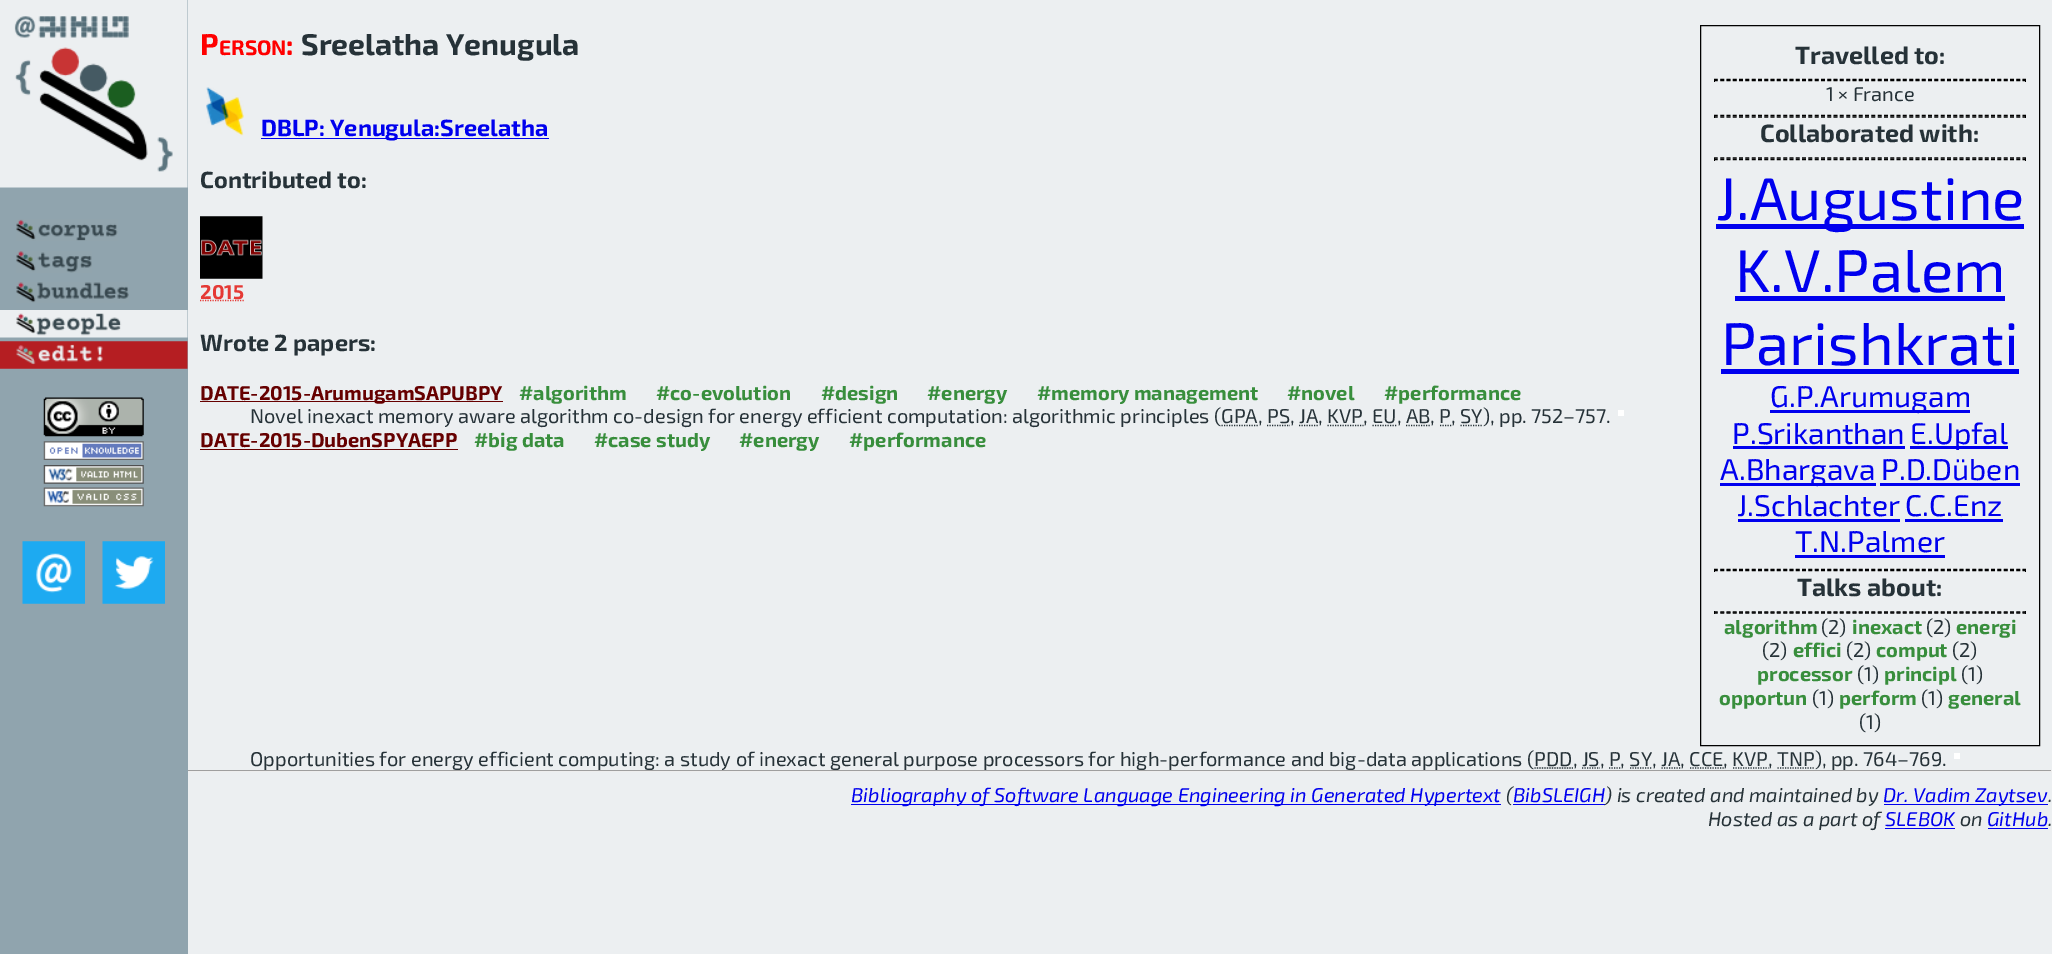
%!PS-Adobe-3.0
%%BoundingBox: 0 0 2052 954
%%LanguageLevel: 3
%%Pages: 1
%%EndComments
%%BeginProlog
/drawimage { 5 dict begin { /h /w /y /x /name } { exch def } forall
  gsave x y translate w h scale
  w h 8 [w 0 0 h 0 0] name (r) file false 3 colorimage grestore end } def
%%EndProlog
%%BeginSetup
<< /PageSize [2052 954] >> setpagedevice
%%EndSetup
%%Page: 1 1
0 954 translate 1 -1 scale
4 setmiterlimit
0.925 0.937 0.945 setrgbcolor
0 0 2052 954 rectfill
0.565 0.643 0.682 setrgbcolor
0 0 188 954 rectfill
(images/1.raw) 0 0 188 188 drawimage
(images/2.raw) 16 219 102 22 drawimage
(images/3.raw) 16 251 76 22 drawimage
(images/4.raw) 16 282 113 21 drawimage
(images/5.raw) 0 310 188 28 drawimage
(images/6.raw) 0 341 188 28 drawimage
(images/7.raw) 43 397 101 40 drawimage
(images/8.raw) 43 441 101 19 drawimage
(images/9.raw) 43 465 101 19 drawimage
(images/10.raw) 43 487 101 20 drawimage
(images/11.raw) 22 541 63 63 drawimage
(images/12.raw) 102 541 63 63 drawimage
0 setgray
1700.5 25.5 339 720 rectstroke
1.2 setlinewidth
[3.75 2.55] 0 setdash
newpath 1714 79.5 moveto 2026 79.5 lineto stroke
2025 79 1 3 rectfill
newpath 1714 80.5 moveto 2026 80.5 lineto stroke
1714 79 1 3 rectfill
newpath 1714 115.5 moveto 2026 115.5 lineto stroke
2025 115 1 3 rectfill
newpath 1714 117 moveto 2026 117 lineto stroke
1714 115 1 3 rectfill
newpath 1714 158 moveto 2026 158 lineto stroke
2025 158 1 3 rectfill
newpath 1714 159.5 moveto 2026 159.5 lineto stroke
1714 158 1 3 rectfill
0 0 0.933 setrgbcolor
1716 224 308 5 rectfill
1735 296 270 5 rectfill
1721 369 298 5 rectfill
1770 410 200 3 rectfill
1733 446 172 3 rectfill
1910 446 98 3 rectfill
1720 483 156 3 rectfill
1880 483 140 3 rectfill
1738 519 162 3 rectfill
1905 519 98 3 rectfill
1795 555 150 3 rectfill
0 setgray
newpath 1714 569.5 moveto 2026 569.5 lineto stroke
2025 569 1 3 rectfill
newpath 1714 570.5 moveto 2026 570.5 lineto stroke
1714 569 1 3 rectfill
newpath 1714 612 moveto 2026 612 lineto stroke
2025 611 1 3 rectfill
newpath 1714 613 moveto 2026 613 lineto stroke
1714 611 1 3 rectfill
(images/13.raw) 206 87 38 49 drawimage
0 0 0.933 setrgbcolor
261 138 288 1 rectfill
(images/14.raw) 200 216 63 63 drawimage
0.898 0.224 0.208 setrgbcolor
[1.25 1.25] 0 setdash
newpath 200 300.5 moveto 244 300.5 lineto stroke
0.4 0 0 setrgbcolor
200 401 303 1 rectfill
0.149 0.196 0.22 setrgbcolor
newpath 1221.5 425.5 moveto 1258 425.5 lineto stroke
newpath 1267 425.5 moveto 1290 425.5 lineto 1299 425.5 moveto 1318.5 425.5 lineto stroke
newpath 1327.5 425.5 moveto 1363.5 425.5 lineto stroke
newpath 1372.5 425.5 moveto 1397 425.5 lineto 1406 425.5 moveto 1430.5 425.5 lineto stroke
newpath 1440 425.5 moveto 1451.5 425.5 lineto 1460.5 425.5 moveto 1483 425.5 lineto stroke
1 setgray
1618 410 6 6 rectfill
0.4 0 0 setrgbcolor
200 449 258 1 rectfill
0.149 0.196 0.22 setrgbcolor
newpath 1534.5 768 moveto 1573 768 lineto stroke
newpath 1582 768 moveto 1600 768 lineto 1609 768 moveto 1621 768 lineto stroke
newpath 1630 768 moveto 1652.5 768 lineto 1661.5 768 moveto 1680.5 768 lineto stroke
newpath 1690 768 moveto 1724 768 lineto stroke
newpath 1733 768 moveto 1768.5 768 lineto stroke
newpath 1777.5 768 moveto 1815 768 lineto stroke
1 setgray
1954 753 6 6 rectfill
0 0 0.933 setrgbcolor
851 804 650 1 rectfill
1884 804 164 1 rectfill
1885 828 70 1 rectfill
1988 828 60 1 rectfill
/Exo2-Bold [30 0 0 -30 0 0] selectfont
1 0 0 setrgbcolor
200 55 moveto (P) show
/Exo2-Bold [21 0 0 -21 0 0] selectfont
219 55 moveto (ERSON) show
/Exo2-Bold [30 0 0 -30 0 0] selectfont
286 55 moveto (:) show
0.149 0.196 0.22 setrgbcolor
301 55 moveto (Sreelatha Yenugula) show
/Exo2-Bold [25 0 0 -25 0 0] selectfont
1795 64 moveto (Travelled to:) show
/Exo2-Regular [20 0 0 -20 0 0] selectfont
1826 101 moveto (1 × France) show
/Exo2-Bold [25 0 0 -25 0 0] selectfont
1760 142 moveto (Collaborated with:) show
/Exo2-Regular [60 0 0 -60 0 0] selectfont
0 0 0.933 setrgbcolor
1716 220 moveto (J.Augustine) show
1735 292 moveto (K.V.Palem) show
1721 365 moveto (Parishkrati) show
/Exo2-Regular [30 0 0 -30 0 0] selectfont
1770 407 moveto (G.P.Arumugam) show
1732 444 moveto (P.Srikanthan) show
1910 444 moveto (E.Upfal) show
1720 480 moveto (A.Bhargava) show
1881 480 moveto (P.D.Düben) show
1737 516 moveto (J.Schlachter) show
1905 516 moveto (C.C.Enz) show
1795 552 moveto (T.N.Palmer) show
/Exo2-Bold [25 0 0 -25 0 0] selectfont
0.149 0.196 0.22 setrgbcolor
1797 596 moveto (Talks about:) show
/Exo2-Bold [20 0 0 -20 0 0] selectfont
0.22 0.557 0.235 setrgbcolor
1724 634 moveto (algorithm) show
/Exo2-Regular [20 0 0 -20 0 0] selectfont
0.149 0.196 0.22 setrgbcolor
1821 634 moveto (\(2\)) show
/Exo2-Bold [20 0 0 -20 0 0] selectfont
0.22 0.557 0.235 setrgbcolor
1852 634 moveto (inexact) show
/Exo2-Regular [20 0 0 -20 0 0] selectfont
0.149 0.196 0.22 setrgbcolor
1926 634 moveto (\(2\)) show
/Exo2-Bold [20 0 0 -20 0 0] selectfont
0.22 0.557 0.235 setrgbcolor
1956 634 moveto (energi) show
/Exo2-Regular [20 0 0 -20 0 0] selectfont
0.149 0.196 0.22 setrgbcolor
1762 657 moveto (\(2\)) show
/Exo2-Bold [20 0 0 -20 0 0] selectfont
0.22 0.557 0.235 setrgbcolor
1793 657 moveto (effici) show
/Exo2-Regular [20 0 0 -20 0 0] selectfont
0.149 0.196 0.22 setrgbcolor
1846 657 moveto (\(2\)) show
/Exo2-Bold [20 0 0 -20 0 0] selectfont
0.22 0.557 0.235 setrgbcolor
1876 657 moveto (comput) show
/Exo2-Regular [20 0 0 -20 0 0] selectfont
0.149 0.196 0.22 setrgbcolor
1952 657 moveto (\(2\)) show
/Exo2-Bold [20 0 0 -20 0 0] selectfont
0.22 0.557 0.235 setrgbcolor
1757 681 moveto (processor) show
/Exo2-Regular [20 0 0 -20 0 0] selectfont
0.149 0.196 0.22 setrgbcolor
1857 681 moveto (\(1\)) show
/Exo2-Bold [20 0 0 -20 0 0] selectfont
0.22 0.557 0.235 setrgbcolor
1884 681 moveto (principl) show
/Exo2-Regular [20 0 0 -20 0 0] selectfont
0.149 0.196 0.22 setrgbcolor
1961 681 moveto (\(1\)) show
/Exo2-Bold [20 0 0 -20 0 0] selectfont
0.22 0.557 0.235 setrgbcolor
1719 705 moveto (opportun) show
/Exo2-Regular [20 0 0 -20 0 0] selectfont
0.149 0.196 0.22 setrgbcolor
1812 705 moveto (\(1\)) show
/Exo2-Bold [20 0 0 -20 0 0] selectfont
0.22 0.557 0.235 setrgbcolor
1839 705 moveto (perform) show
/Exo2-Regular [20 0 0 -20 0 0] selectfont
0.149 0.196 0.22 setrgbcolor
1921 705 moveto (\(1\)) show
/Exo2-Bold [20 0 0 -20 0 0] selectfont
0.22 0.557 0.235 setrgbcolor
1948 705 moveto (general) show
/Exo2-Regular [20 0 0 -20 0 0] selectfont
0.149 0.196 0.22 setrgbcolor
1859 729 moveto (\(1\)) show
/Exo2-Bold [23.4 0 0 -23.4 0 0] selectfont
0 0 0.933 setrgbcolor
261 136 moveto (DBLP: Yenugula:Sreelatha) show
0.149 0.196 0.22 setrgbcolor
200 188 moveto (Contributed to:) show
/Exo2-Bold [20 0 0 -20 0 0] selectfont
0.898 0.224 0.208 setrgbcolor
200 299 moveto (2015) show
/Exo2-Bold [23.4 0 0 -23.4 0 0] selectfont
0.149 0.196 0.22 setrgbcolor
200 351 moveto (Wrote 2 papers:) show
/Exo2-Bold [20 0 0 -20 0 0] selectfont
0.4 0 0 setrgbcolor
200 400 moveto (DATE-2015-ArumugamSAPUBPY) show
0.22 0.557 0.235 setrgbcolor
519 400 moveto (#algorithm) show
656 400 moveto (#co-evolution) show
821 400 moveto (#design) show
927 400 moveto (#energy) show
1037 400 moveto (#memory management) show
1287 400 moveto (#novel) show
1384 400 moveto (#performance) show
/Exo2-Regular [20 0 0 -20 0 0] selectfont
0.149 0.196 0.22 setrgbcolor
250 423 moveto (Novel inexact memory aware algorithm co-design for energy efficient computation: algorithmic principles \(GPA, PS, JA, KVP, EU, AB, P, SY\), pp. 752–757.) show
/Exo2-Bold [20 0 0 -20 0 0] selectfont
0.4 0 0 setrgbcolor
200 447 moveto (DATE-2015-DubenSPYAEPP) show
0.22 0.557 0.235 setrgbcolor
474 447 moveto (#big data) show
594 447 moveto (#case study) show
739 447 moveto (#energy) show
849 447 moveto (#performance) show
/Exo2-Regular [20 0 0 -20 0 0] selectfont
0.149 0.196 0.22 setrgbcolor
250 766 moveto (Opportunities for energy efficient computing: a study of inexact general purpose processors for high-performance and big-data applications \(PDD, JS, P, SY, JA, CCE, KVP, TNP\), pp. 764–769.) show
0.624 setgray
188 770 1864 1 rectfill
0.933 setgray
2051 770 1 3 rectfill
188 771 1864 1 rectfill
/Exo2-Italic [20 0 0 -20 0 0] selectfont
0 0 0.933 setrgbcolor
851 802 moveto (Bibliography of Software Language Engineering in Generated Hypertext) show
0.149 0.196 0.22 setrgbcolor
1506 802 moveto (\() show
0 0 0.933 setrgbcolor
1513 802 moveto (BibSLEIGH) show
1513 804 92 1 rectfill
0.149 0.196 0.22 setrgbcolor
1605 802 moveto (\) is created and maintained by) show
0 0 0.933 setrgbcolor
1883 802 moveto (Dr. Vadim Zaytsev) show
0.149 0.196 0.22 setrgbcolor
2048 802 moveto (.) show
1708 826 moveto (Hosted as a part of) show
0 0 0.933 setrgbcolor
1885 826 moveto (SLEBOK) show
0.149 0.196 0.22 setrgbcolor
1960 826 moveto (on) show
0 0 0.933 setrgbcolor
1987 826 moveto (GitHub) show
0.149 0.196 0.22 setrgbcolor
2048 826 moveto (.) show
showpage
%%EOF
